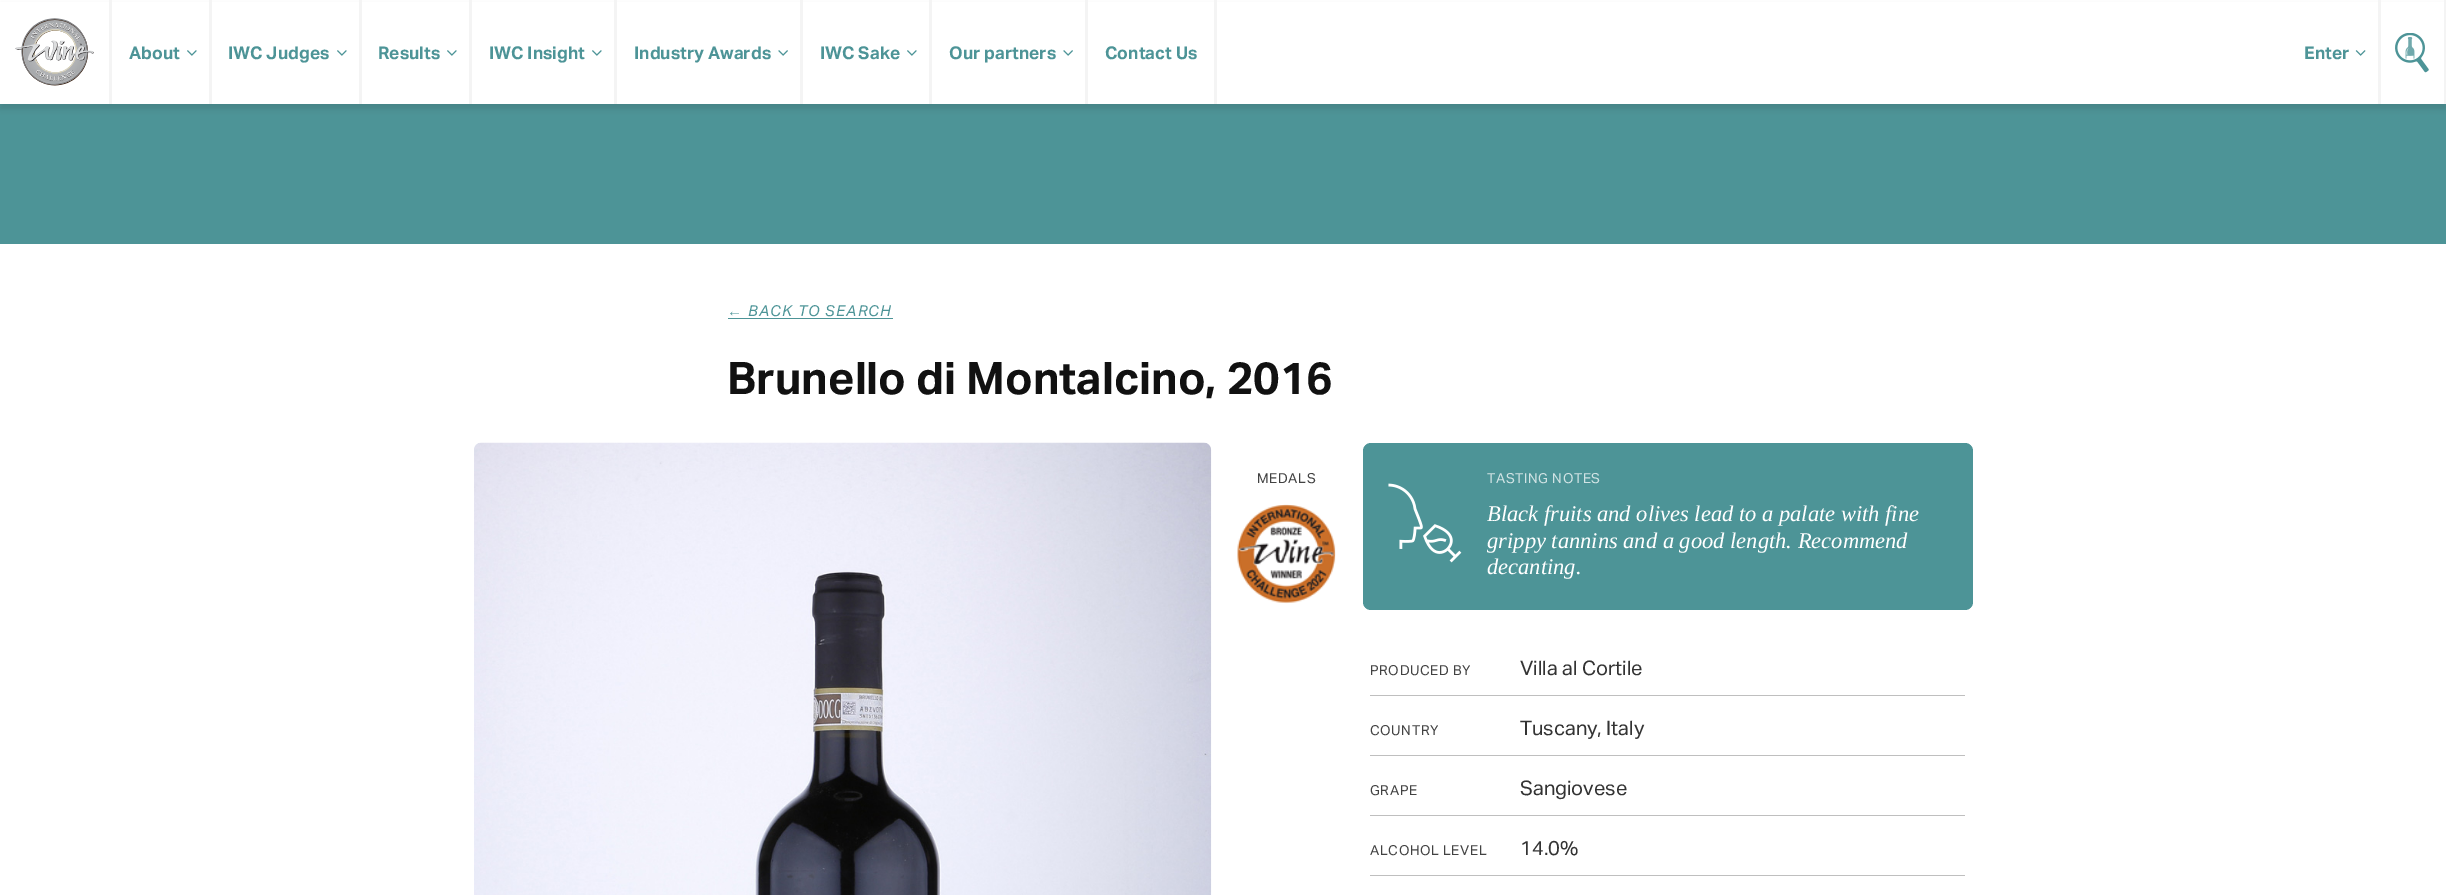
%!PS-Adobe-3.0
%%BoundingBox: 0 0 2446 895
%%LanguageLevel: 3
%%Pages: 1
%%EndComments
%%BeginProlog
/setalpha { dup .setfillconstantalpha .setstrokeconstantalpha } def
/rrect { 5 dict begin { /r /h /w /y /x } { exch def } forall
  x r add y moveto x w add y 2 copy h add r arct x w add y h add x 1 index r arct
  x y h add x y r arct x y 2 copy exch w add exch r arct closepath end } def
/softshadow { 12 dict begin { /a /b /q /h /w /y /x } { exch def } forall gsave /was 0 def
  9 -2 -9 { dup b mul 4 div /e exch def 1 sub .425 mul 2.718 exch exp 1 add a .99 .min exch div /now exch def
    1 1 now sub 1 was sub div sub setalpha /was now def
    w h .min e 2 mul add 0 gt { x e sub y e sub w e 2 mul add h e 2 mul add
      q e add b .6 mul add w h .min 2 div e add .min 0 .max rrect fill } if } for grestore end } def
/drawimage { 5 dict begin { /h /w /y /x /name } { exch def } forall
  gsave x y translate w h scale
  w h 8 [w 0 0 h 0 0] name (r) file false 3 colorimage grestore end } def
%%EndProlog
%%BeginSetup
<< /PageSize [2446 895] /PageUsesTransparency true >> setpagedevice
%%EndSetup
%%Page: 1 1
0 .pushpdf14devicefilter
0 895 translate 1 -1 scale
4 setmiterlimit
1 setgray
0 0 2446 895 rectfill
0.302 0.58 0.592 setrgbcolor
0 104 2446 140 rectfill
0 setgray
0 5 2446 104 0 2.5 0.1 softshadow
1 setgray
0 2 2444 102 rectfill
0.957 setgray
109 0 3 104 rectfill
(images/1.raw) 15 18 79 68 drawimage
209 0 3 104 rectfill
(images/2.raw) 187 50 10 6 drawimage
359 0 3 104 rectfill
(images/2.raw) 337 50 10 6 drawimage
469 0 3 104 rectfill
(images/2.raw) 447 50 10 6 drawimage
614 0 3 104 rectfill
(images/2.raw) 592 50 10 6 drawimage
800 0 3 104 rectfill
(images/3.raw) 778 50 10 6 drawimage
929 0 3 104 rectfill
(images/2.raw) 907 50 10 6 drawimage
1085 0 3 104 rectfill
(images/3.raw) 1063 50 10 6 drawimage
1214 0 3 104 rectfill
2378 0 3 104 rectfill
(images/4.raw) 2355 50 11 6 drawimage
2444 0 2 104 rectfill
(images/5.raw) 2395 33 34 40 drawimage
0.302 0.58 0.592 setrgbcolor
728 318 165 1 rectfill
(images/6.raw) 474 442 738 453 drawimage
(images/7.raw) 1237 504 99 100 drawimage
1363 443 610 167 8 rrect fill
(images/8.raw) 1388 483 74 80 drawimage
0.749 setgray
1370 695 595 1 rectfill
1370 755 595 1 rectfill
1370 815 595 1 rectfill
1370 875 595 1 rectfill
/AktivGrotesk-Bold [17.5 0 0 -17.5 0 0] selectfont
0.302 0.58 0.592 setrgbcolor
129 59 moveto (About) show
228 59 moveto (IWC Judges) show
378 59 moveto (Results) show
489 59 moveto (IWC Insight) show
634 59 moveto (Industry Awards) show
820 59 moveto (IWC Sake) show
949 59 moveto (Our partners) show
1105 59 moveto (Contact Us) show
2304 59 moveto (Enter) show
/LiberationSans-Italic [15 0 0 -15 0 0] selectfont
727 316 moveto 1.25 0 (←) ashow
/AktivGrotesk-Italic [15 0 0 -15 0 0] selectfont
748 316 moveto 1.25 0 (BACK TO SEARCH) ashow
/AktivGrotesk-Bold [45 0 0 -45 0 0] selectfont
0.067 setgray
727 394 moveto (Brunello di Montalcino, 2016) show
/AktivGrotesk-Regular [13.75 0 0 -13.75 0 0] selectfont
0.259 setgray
1257 483 moveto 0.6 0 (MEDALS) ashow
0.82 0.89 0.894 setrgbcolor
1487 483 moveto 0.6 0 (TASTING NOTES) ashow
/LiberationSerif-Italic [22.5 0 0 -22.5 0 0] selectfont
1 setgray
1487 521 moveto (Black fruits and olives lead to a palate with fine) show
1487 548 moveto (grippy tannins and a good length. Recommend) show
1487 574 moveto (decanting.) show
/AktivGrotesk-Regular [13.75 0 0 -13.75 0 0] selectfont
0.259 setgray
1370 675 moveto 0.6 0 (PRODUCED BY) ashow
/AktivGrotesk-Regular [20 0 0 -20 0 0] selectfont
0.2 setgray
1520 675 moveto (Villa al Cortile) show
/AktivGrotesk-Regular [13.75 0 0 -13.75 0 0] selectfont
0.259 setgray
1370 735 moveto 0.6 0 (COUNTRY) ashow
/AktivGrotesk-Regular [20 0 0 -20 0 0] selectfont
0.2 setgray
1520 735 moveto (Tuscany, Italy) show
/AktivGrotesk-Regular [13.75 0 0 -13.75 0 0] selectfont
0.259 setgray
1370 795 moveto 0.6 0 (GRAPE) ashow
/AktivGrotesk-Regular [20 0 0 -20 0 0] selectfont
0.2 setgray
1520 795 moveto (Sangiovese) show
/AktivGrotesk-Regular [13.75 0 0 -13.75 0 0] selectfont
0.259 setgray
1370 855 moveto 0.6 0 (ALCOHOL LEVEL) ashow
/AktivGrotesk-Regular [20 0 0 -20 0 0] selectfont
0.2 setgray
1520 855 moveto (14.0%) show
.poppdf14devicefilter showpage
%%EOF
